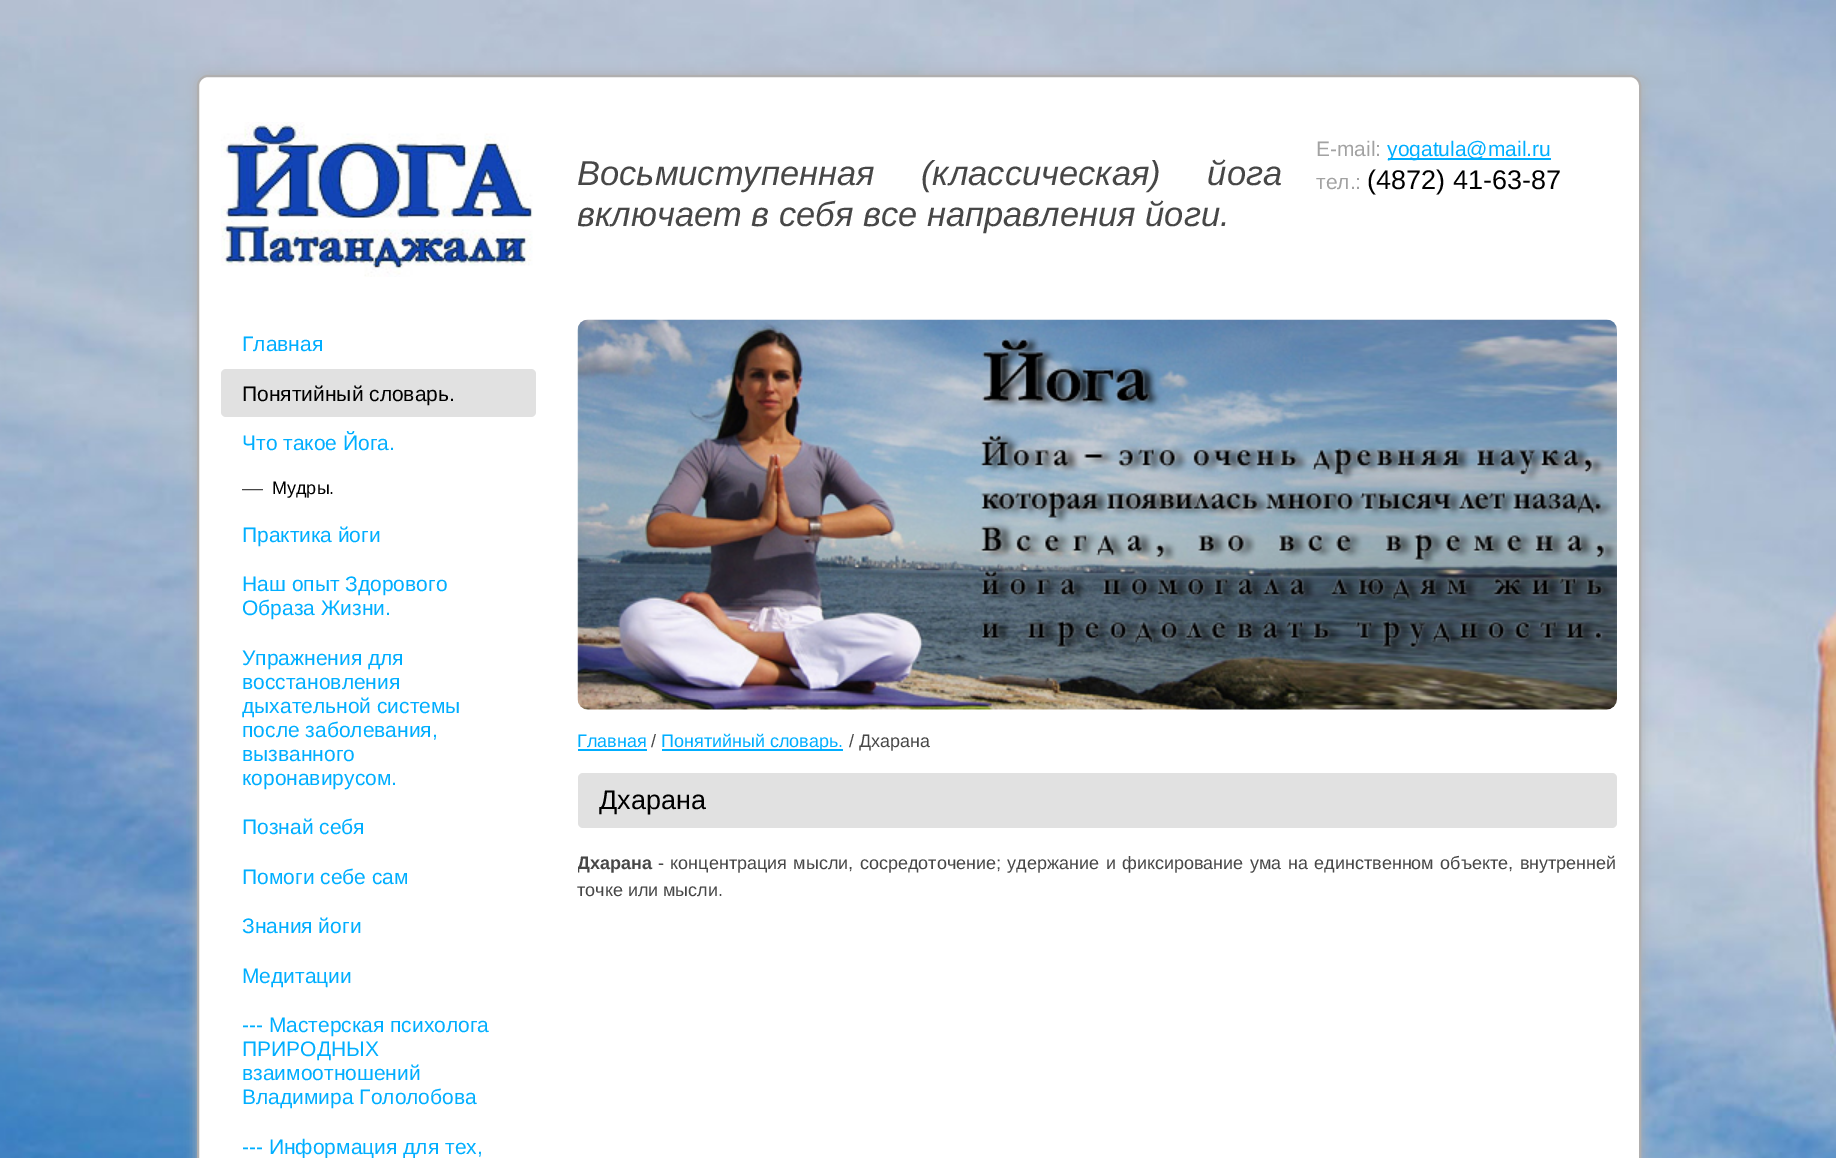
%!PS-Adobe-3.0
%%BoundingBox: 0 0 1836 1158
%%LanguageLevel: 3
%%Pages: 1
%%EndComments
%%BeginProlog
/setalpha { dup .setfillconstantalpha .setstrokeconstantalpha } def
/rrect { 5 dict begin { /r /h /w /y /x } { exch def } forall
  x r add y moveto x w add y 2 copy h add r arct x w add y h add x 1 index r arct
  x y h add x y r arct x y 2 copy exch w add exch r arct closepath end } def
/softshadow { 12 dict begin { /a /b /q /h /w /y /x } { exch def } forall gsave /was 0 def
  9 -2 -9 { dup b mul 4 div /e exch def 1 sub .425 mul 2.718 exch exp 1 add a .99 .min exch div /now exch def
    1 1 now sub 1 was sub div sub setalpha /was now def
    w h .min e 2 mul add 0 gt { x e sub y e sub w e 2 mul add h e 2 mul add
      q e add b .6 mul add w h .min 2 div e add .min 0 .max rrect fill } if } for grestore end } def
/drawimage { 5 dict begin { /h /w /y /x /name } { exch def } forall
  gsave x y translate w h scale
  w h 8 [w 0 0 h 0 0] name (r) file false 3 colorimage grestore end } def
%%EndProlog
%%BeginSetup
<< /PageSize [1836 1158] /PageUsesTransparency true >> setpagedevice
%%EndSetup
%%Page: 1 1
0 .pushpdf14devicefilter
0 1158 translate 1 -1 scale
4 setmiterlimit
1 setgray
0 0 1836 1158 rectfill
(images/1.raw) 0 0 1836 1158 drawimage
0.69 0.686 0.686 setrgbcolor
197 75 1444 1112 11 6 1 softshadow
1 setgray
198 76 1442 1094 10 rrect gsave fill grestore
0.69 0.686 0.686 setrgbcolor
2 setlinewidth
stroke
(images/2.raw) 220 122 313 155 drawimage
0 0.682 1 setrgbcolor
1388 158 163 2 rectfill
0.882 setgray
221 369 315 48 5 rrect fill
(images/3.raw) 577 319 1040 391 drawimage
0 0.682 1 setrgbcolor
578 749 69 2 rectfill
662 749 181 2 rectfill
0.882 setgray
578 773 1039 55 5 rrect fill
/LiberationSans-Italic [34.5 0 0 -34.5 0 0] selectfont
0.278 setgray
577 185 moveto 37 0 32 (Восьмиступенная \(классическая\) йога) widthshow
gsave
578 122 1039 121 rectclip
577 226 moveto (включает в) show
grestore
779 226 moveto (себя все направления йоги.) show
/LiberationSans-Regular [21 0 0 -21 0 0] selectfont
0.635 setgray
1316 156 moveto (E-mail:) show
0 0.682 1 setrgbcolor
1387 156 moveto (yogatula@mail.ru) show
0.635 setgray
1316 189 moveto (тел.:) show
/LiberationSans-Regular [27 0 0 -27 0 0] selectfont
0 setgray
1367 189 moveto (\(4872\) 41-63-87) show
/LiberationSans-Regular [21 0 0 -21 0 0] selectfont
0 0.682 1 setrgbcolor
242 351 moveto (Главная) show
0 setgray
242 401 moveto (Понятийный словарь.) show
0 0.682 1 setrgbcolor
242 450 moveto (Что такое Йога.) show
0.278 setgray
242 495 moveto (—) show
/LiberationSans-Regular [18 0 0 -18 0 0] selectfont
0 setgray
272 494 moveto (Мудры.) show
/LiberationSans-Regular [21 0 0 -21 0 0] selectfont
0 0.682 1 setrgbcolor
242 542 moveto (Практика йоги) show
242 591 moveto (Наш опыт Здорового) show
242 615 moveto (Образа Жизни.) show
242 665 moveto (Упражнения для) show
242 689 moveto (восстановления) show
242 713 moveto (дыхательной системы) show
242 737 moveto (после заболевания,) show
242 761 moveto (вызванного) show
242 785 moveto (коронавирусом.) show
242 834 moveto (Познай себя) show
242 884 moveto (Помоги себе сам) show
242 933 moveto (Знания йоги) show
242 983 moveto (Медитации) show
242 1032 moveto (--- Мастерская психолога) show
242 1056 moveto (ПРИРОДНЫХ) show
242 1080 moveto (взаимоотношений) show
242 1104 moveto (Владимира Гололобова) show
242 1154 moveto (--- Информация для тех,) show
/LiberationSans-Regular [18 0 0 -18 0 0] selectfont
577 747 moveto (Главная) show
0.278 setgray
651 747 moveto (/) show
0 0.682 1 setrgbcolor
661 747 moveto (Понятийный словарь.) show
0.278 setgray
849 747 moveto (/ Дхарана) show
/LiberationSans-Regular [27 0 0 -27 0 0] selectfont
0 setgray
599 809 moveto (Дхарана) show
gsave
578 320 1039 613 rectclip
/LiberationSans-Bold [18 0 0 -18 0 0] selectfont
0.278 setgray
577 869 moveto (Дхарана) show
grestore
/LiberationSans-Regular [18 0 0 -18 0 0] selectfont
0.278 setgray
658 869 moveto 1.5 0 32 (- концентрация мысли, сосредоточение; удержание и фиксирование ума на единственном объекте, внутренней) widthshow
577 896 moveto (точке или мысли.) show
.poppdf14devicefilter showpage
%%EOF
